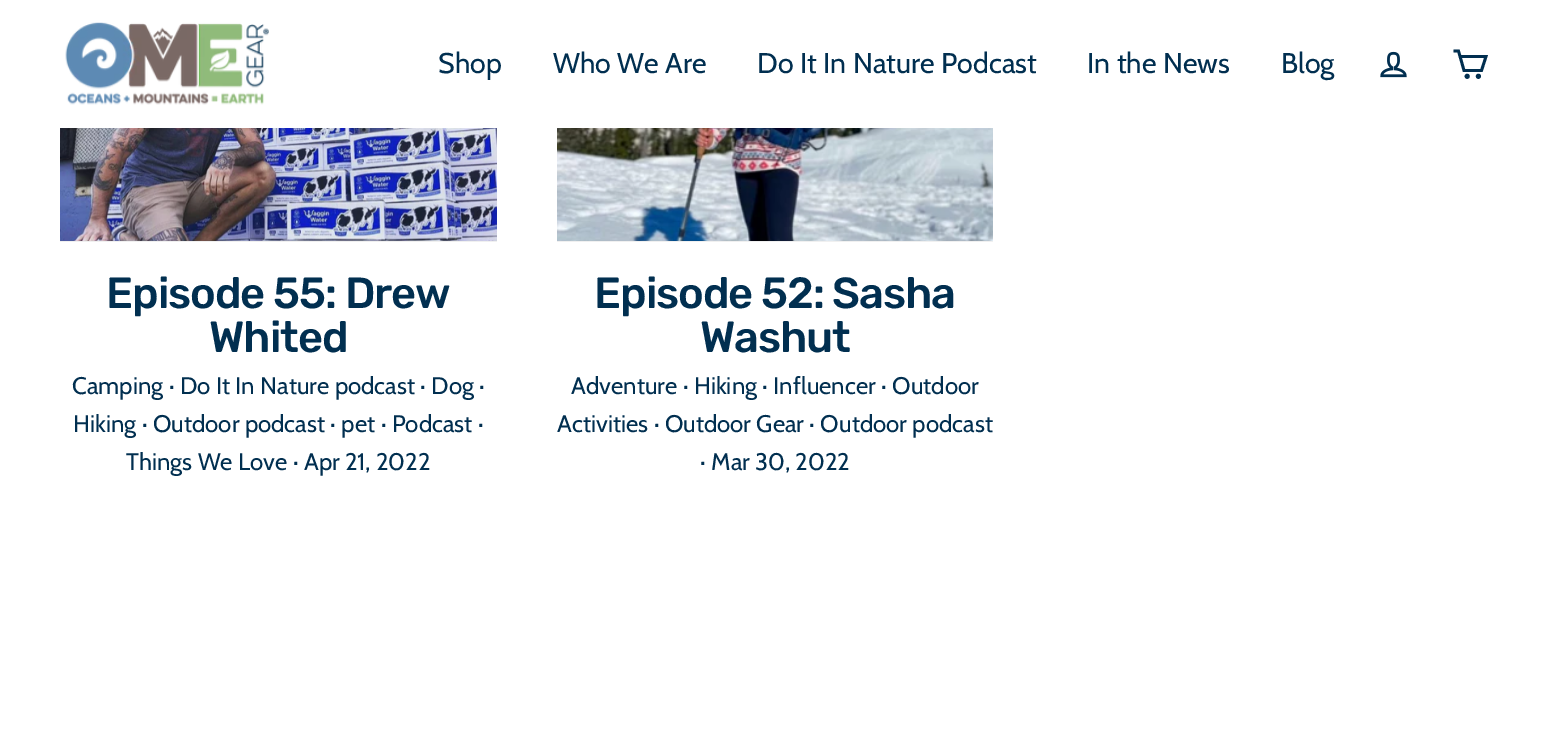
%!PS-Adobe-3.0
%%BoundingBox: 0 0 1549 743
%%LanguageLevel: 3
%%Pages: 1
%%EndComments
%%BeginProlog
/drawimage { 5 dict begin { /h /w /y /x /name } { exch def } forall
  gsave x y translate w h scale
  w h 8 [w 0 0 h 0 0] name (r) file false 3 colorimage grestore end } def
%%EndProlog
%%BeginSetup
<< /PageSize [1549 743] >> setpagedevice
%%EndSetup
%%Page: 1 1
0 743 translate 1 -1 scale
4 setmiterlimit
1 setgray
0 0 1549 743 rectfill
(images/1.raw) 65 22 204 83 drawimage
(images/2.raw) 1380 51 27 27 drawimage
0.004 0.184 0.314 setrgbcolor
2.8 setlinewidth
newpath 1460 56.5 moveto 1486 56.5 lineto 1481.5 70.5 lineto 1464 70.5 lineto 1458.5 51 lineto 1453.5 51 lineto stroke
newpath 1467.2 76.3 1.1 0 360 arc closepath stroke
newpath 1478.4 76.3 1.1 0 360 arc closepath stroke
gsave newpath 60 128 moveto 497 128 lineto 497 242 lineto 60 242 lineto closepath clip newpath
<< /ShadingType 2 /ColorSpace /DeviceRGB /Coords [65 -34 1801 272] /Extend [true true] /Function << /FunctionType 3 /Domain [0 1] /Functions [<< /FunctionType 2 /Domain [0 1] /C0 [0.941 0.941 0.941] /C1 [0.941 0.941 0.941] /N 1 >> << /FunctionType 2 /Domain [0 1] /C0 [0.941 0.941 0.941] /C1 [0.91 0.91 0.91] /N 1 >> << /FunctionType 2 /Domain [0 1] /C0 [0.91 0.91 0.91] /C1 [0.941 0.941 0.941] /N 1 >> << /FunctionType 2 /Domain [0 1] /C0 [0.941 0.941 0.941] /C1 [0.941 0.941 0.941] /N 1 >>] /Bounds [0.4 0.63 0.79] /Encode [0 1 0 1 0 1 0 1] >> >> shfill grestore
(images/3.raw) 60 128 437 113 drawimage
gsave newpath 557 128 moveto 993 128 lineto 993 242 lineto 557 242 lineto closepath clip newpath
<< /ShadingType 2 /ColorSpace /DeviceRGB /Coords [562 -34 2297 272] /Extend [true true] /Function << /FunctionType 3 /Domain [0 1] /Functions [<< /FunctionType 2 /Domain [0 1] /C0 [0.941 0.941 0.941] /C1 [0.941 0.941 0.941] /N 1 >> << /FunctionType 2 /Domain [0 1] /C0 [0.941 0.941 0.941] /C1 [0.91 0.91 0.91] /N 1 >> << /FunctionType 2 /Domain [0 1] /C0 [0.91 0.91 0.91] /C1 [0.941 0.941 0.941] /N 1 >> << /FunctionType 2 /Domain [0 1] /C0 [0.941 0.941 0.941] /C1 [0.941 0.941 0.941] /N 1 >>] /Bounds [0.4 0.63 0.79] /Encode [0 1 0 1 0 1 0 1] >> >> shfill grestore
(images/4.raw) 557 128 436 113 drawimage
/Cabin-Regular [28.5 0 0 -28.5 0 0] selectfont
438 73 moveto (Shop) show
553 73 moveto (Who We Are) show
757 73 moveto (Do It In Nature Podcast) show
1087 73 moveto (In the News) show
1281 73 moveto (Blog) show
/Rubik-Medium [43.5 0 0 -43.5 0 0] selectfont
106 308 moveto -1.1 0 (Episode 55: Drew) ashow
209 352 moveto -1.1 0 (Whited) ashow
/Cabin-Regular [24 0 0 -24 0 0] selectfont
72 394 moveto (Camping · Do It In Nature podcast · Dog ·) show
73 432 moveto (Hiking · Outdoor podcast · pet · Podcast ·) show
126 470 moveto (Things We Love · Apr 21, 2022) show
/Rubik-Medium [43.5 0 0 -43.5 0 0] selectfont
594 308 moveto -1.1 0 (Episode 52: Sasha) ashow
700 352 moveto -1.1 0 (Washut) ashow
/Cabin-Regular [24 0 0 -24 0 0] selectfont
571 394 moveto (Adventure · Hiking · Influencer · Outdoor) show
557 432 moveto (Activities · Outdoor Gear · Outdoor podcast) show
700 470 moveto (· Mar 30, 2022) show
showpage
%%EOF
